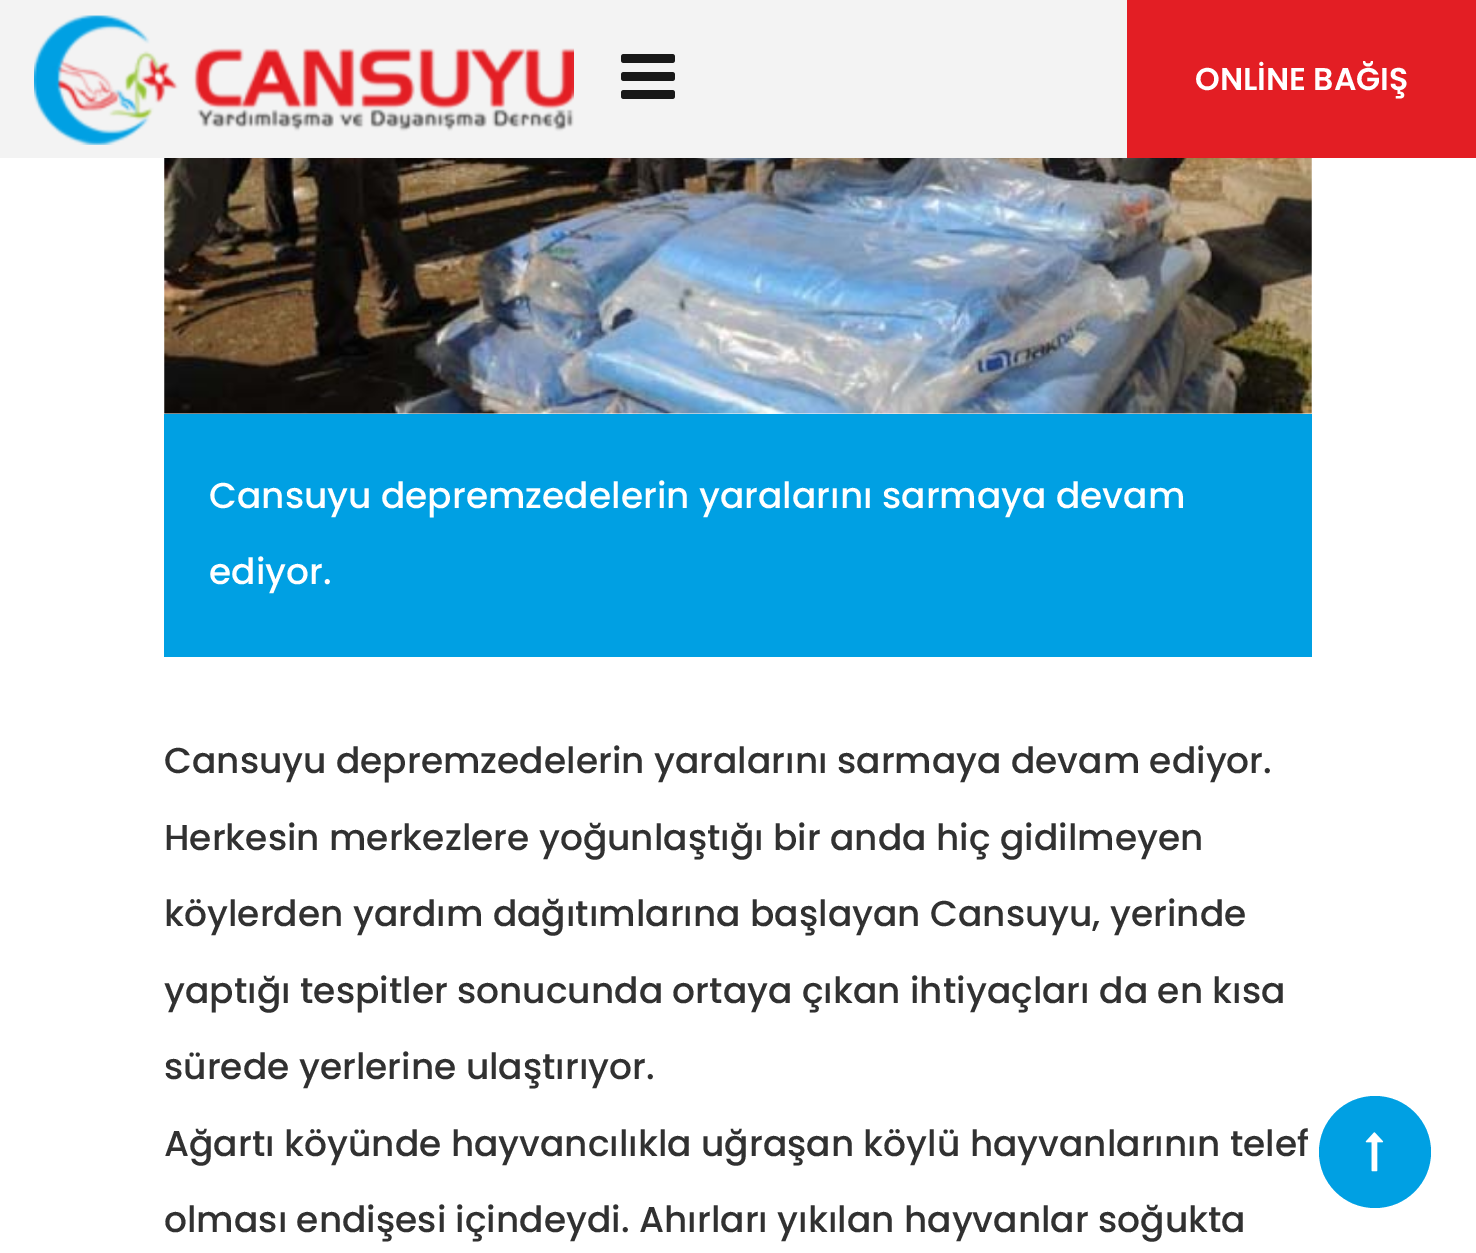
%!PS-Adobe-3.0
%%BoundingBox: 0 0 1476 1253
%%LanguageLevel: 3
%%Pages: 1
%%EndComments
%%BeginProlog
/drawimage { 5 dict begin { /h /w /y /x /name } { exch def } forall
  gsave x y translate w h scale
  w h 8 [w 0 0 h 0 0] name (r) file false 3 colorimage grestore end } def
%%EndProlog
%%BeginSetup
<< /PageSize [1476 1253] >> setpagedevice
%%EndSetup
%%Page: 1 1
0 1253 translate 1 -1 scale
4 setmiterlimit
1 setgray
0 0 1476 1253 rectfill
0.953 setgray
0 0 1127 158 rectfill
(images/1.raw) 34 15 540 130 drawimage
(images/2.raw) 621 54 54 45 drawimage
0.89 0.118 0.141 setrgbcolor
1127 0 349 158 rectfill
(images/3.raw) 164 158 1148 256 drawimage
0 0.627 0.89 setrgbcolor
164 414 1148 243 rectfill
newpath 1375 1152 56 0 360 arc closepath fill
(images/4.raw) 1365 1132 19 40 drawimage
/Poppins-SemiBold [31.5 0 0 -31.5 0 0] selectfont
1 setgray
1195 90 moveto (ONLİNE BAĞIŞ) show
/Poppins-Medium [36 0 0 -36 0 0] selectfont
209 508 moveto (Cansuyu depremzedelerin yaralarını sarmaya devam) show
209 584 moveto (ediyor.) show
0.192 setgray
164 773 moveto (Cansuyu depremzedelerin yaralarını sarmaya devam ediyor.) show
164 850 moveto (Herkesin merkezlere yoğunlaştığı bir anda hiç gidilmeyen) show
164 926 moveto (köylerden yardım dağıtımlarına başlayan Cansuyu, yerinde) show
164 1003 moveto (yaptığı tespitler sonucunda ortaya çıkan ihtiyaçları da en kısa) show
164 1079 moveto (sürede yerlerine ulaştırıyor.) show
164 1156 moveto (Ağartı köyünde hayvancılıkla uğraşan köylü hayvanlarının telef) show
164 1232 moveto (olması endişesi içindeydi. Ahırları yıkılan hayvanlar soğukta) show
showpage
%%EOF
